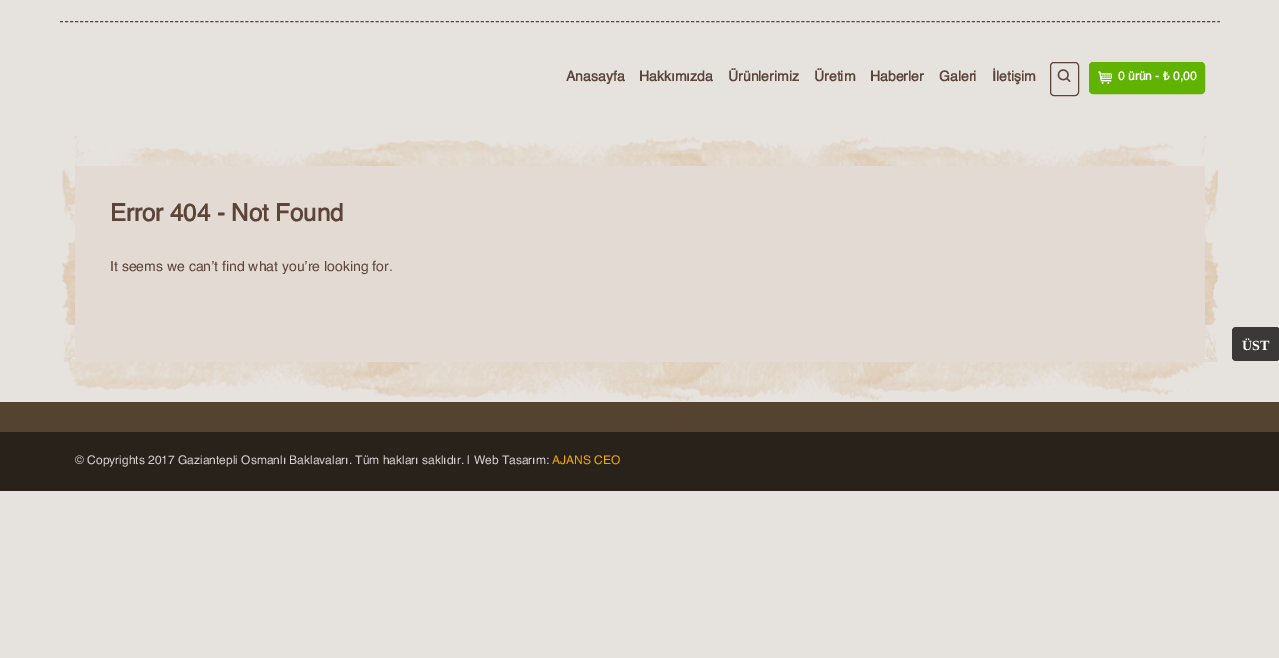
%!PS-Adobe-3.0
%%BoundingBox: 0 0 1279 658
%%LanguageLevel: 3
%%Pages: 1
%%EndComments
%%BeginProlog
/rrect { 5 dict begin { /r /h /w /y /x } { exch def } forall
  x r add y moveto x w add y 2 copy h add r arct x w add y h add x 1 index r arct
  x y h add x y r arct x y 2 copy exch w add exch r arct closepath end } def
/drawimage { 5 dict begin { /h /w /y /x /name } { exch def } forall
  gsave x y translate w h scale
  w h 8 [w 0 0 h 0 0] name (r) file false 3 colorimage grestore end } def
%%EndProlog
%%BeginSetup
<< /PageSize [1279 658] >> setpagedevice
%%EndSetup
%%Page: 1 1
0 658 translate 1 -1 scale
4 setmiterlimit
0.902 0.886 0.871 setrgbcolor
0 0 1279 658 rectfill
0.361 0.267 0.227 setrgbcolor
[3 2.01] 0 setdash
newpath 60 21.5 moveto 1220 21.5 lineto stroke
0.361 0.267 0.224 setrgbcolor
[] 0 setdash
1050.5 62.5 28 33 3.5 rrect stroke
(images/1.raw) 1057 69 14 13 drawimage
0.376 0.702 0.004 setrgbcolor
1089.5 62.5 115 31 3.5 rrect gsave fill grestore
stroke
(images/2.raw) 1098 71 14 13 drawimage
(images/3.raw) 62 136 1156 226 drawimage
(images/4.raw) 75 137 1115 29 drawimage
0.89 0.855 0.827 setrgbcolor
75 166 1130 196 rectfill
(images/5.raw) 68 362 1137 40 drawimage
0.227 0.224 0.22 setrgbcolor
1232 327 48 34 4 rrect fill
0.329 0.263 0.192 setrgbcolor
0 402 1279 30 rectfill
0.161 0.133 0.106 setrgbcolor
0 432 1279 59 rectfill
/Helvetica-Bold [14 0 0 -14 0 0] selectfont
0.361 0.267 0.224 setrgbcolor
566 81 moveto (Anasayfa) show
639 81 moveto (Hakkımızda) show
728 81 moveto (Ürünlerimiz) show
814 81 moveto (Üretim) show
870 81 moveto (Haberler) show
939 81 moveto (Galeri) show
992 81 moveto (İletişim) show
/Helvetica-Bold [12 0 0 -12 0 0] selectfont
1 setgray
1118 80 moveto (0 ürün -) show
/NotoSans-Bold [12 0 0 -12 0 0] selectfont
1163 80 moveto (₺) show
/Helvetica-Bold [12 0 0 -12 0 0] selectfont
1173 80 moveto (0,00) show
/Helvetica-Bold [24 0 0 -24 0 0] selectfont
0.361 0.267 0.224 setrgbcolor
110 221 moveto (Error 404 - Not Found) show
/Helvetica-Regular [14 0 0 -14 0 0] selectfont
110 271 moveto (It seems we can’t find what you’re looking for.) show
/LiberationSerif-Bold [14 0 0 -14 0 0] selectfont
1 setgray
1242 350 moveto (ÜST) show
/Helvetica-Regular [12 0 0 -12 0 0] selectfont
0.827 setgray
75 464 moveto (© Copyrights 2017 Gaziantepli Osmanlı Baklavaları. Tüm hakları saklıdır. | Web Tasarım:) show
0.949 0.655 0 setrgbcolor
552 464 moveto (AJANS CEO) show
showpage
%%EOF
